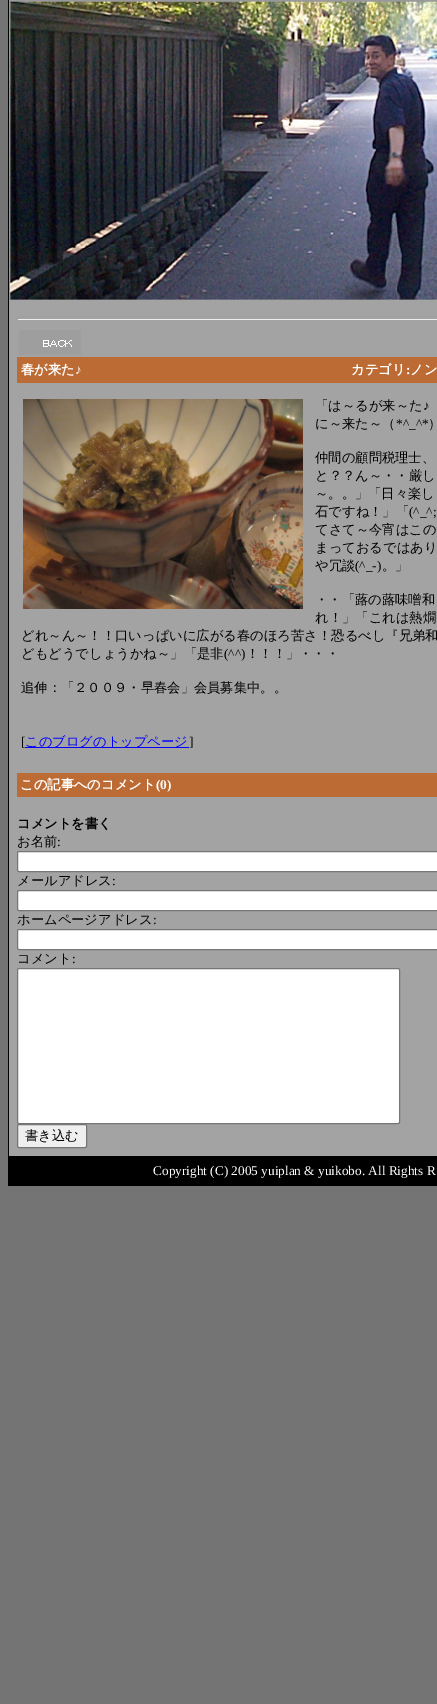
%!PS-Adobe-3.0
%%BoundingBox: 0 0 437 1704
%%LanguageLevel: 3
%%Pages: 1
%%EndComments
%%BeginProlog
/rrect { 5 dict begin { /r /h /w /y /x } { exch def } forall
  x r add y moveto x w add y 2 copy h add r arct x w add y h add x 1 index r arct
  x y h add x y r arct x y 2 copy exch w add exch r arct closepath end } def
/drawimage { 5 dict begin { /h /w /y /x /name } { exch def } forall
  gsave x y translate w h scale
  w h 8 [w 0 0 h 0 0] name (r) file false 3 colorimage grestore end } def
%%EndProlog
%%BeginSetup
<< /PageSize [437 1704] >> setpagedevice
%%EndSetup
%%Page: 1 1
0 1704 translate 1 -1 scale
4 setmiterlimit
0.455 setgray
0 0 437 1704 rectfill
0 setgray
8 0 1 1156 rectfill
(images/1.raw) 9 0 428 300 drawimage
0.639 setgray
9 300 428 856 rectfill
0.624 setgray
17 316 420 1 rectfill
0.933 setgray
17 319 420 1 rectfill
0.624 setgray
17 316 1 4 rectfill
(images/2.raw) 19 330 62 25 drawimage
0.741 0.42 0.204 setrgbcolor
17 357 420 26 rectfill
(images/3.raw) 23 399 280 210 drawimage
0 0 1 setrgbcolor
25 747 164 1 rectfill
0.741 0.42 0.204 setrgbcolor
17 773 420 24 rectfill
1 setgray
17.5 851.5 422 20 1.5 rrect gsave fill grestore
0.463 setgray
stroke
1 setgray
17.5 890.5 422 20 1.5 rrect gsave fill grestore
0.463 setgray
stroke
1 setgray
17.5 929.5 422 20 1.5 rrect gsave fill grestore
0.463 setgray
stroke
1 setgray
17.5 968.5 382 155 1.5 rrect gsave fill grestore
0.463 setgray
stroke
0.937 setgray
17.5 1124.5 69 23 1.5 rrect gsave fill grestore
0.463 setgray
stroke
0 setgray
8 1156 429 30 rectfill
/WenQuanYiZenHei-Bold [13.3 0 0 -13.3 0 0] selectfont
1 setgray
21 374 moveto (春が来た) show
/LiberationSerif-Bold [13.3 0 0 -13.3 0 0] selectfont
75 374 moveto (♪) show
/WenQuanYiZenHei-Bold [13.3 0 0 -13.3 0 0] selectfont
351 374 moveto (カテゴリ) show
/LiberationSerif-Bold [13.3 0 0 -13.3 0 0] selectfont
406 374 moveto (:) show
/WenQuanYiZenHei-Bold [13.3 0 0 -13.3 0 0] selectfont
410 374 moveto (ノン) show
/WenQuanYiZenHei-Medium [13.3 0 0 -13.3 0 0] selectfont
0 setgray
315 410 moveto (「は～るが来～た) show
/LiberationSerif-Regular [13.3 0 0 -13.3 0 0] selectfont
423 410 moveto (♪) show
/WenQuanYiZenHei-Medium [13.3 0 0 -13.3 0 0] selectfont
315 428 moveto (に～来た～（) show
/LiberationSerif-Regular [13.3 0 0 -13.3 0 0] selectfont
396 428 moveto (*^_^*) show
/WenQuanYiZenHei-Medium [13.3 0 0 -13.3 0 0] selectfont
428 428 moveto (）) show
315 462 moveto (仲間の顧問税理士、) show
315 480 moveto (と？？ん～・・厳し) show
315 498 moveto (～。。」「日々楽し) show
315 516 moveto (石ですね！」「) show
/LiberationSerif-Regular [13.3 0 0 -13.3 0 0] selectfont
409 516 moveto (\(^_^;) show
/WenQuanYiZenHei-Medium [13.3 0 0 -13.3 0 0] selectfont
315 534 moveto (てさて～今宵はこの) show
315 552 moveto (まっておるではあり) show
315 570 moveto (や冗談) show
/LiberationSerif-Regular [13.3 0 0 -13.3 0 0] selectfont
355 570 moveto (\(^_-\)) show
/WenQuanYiZenHei-Medium [13.3 0 0 -13.3 0 0] selectfont
382 570 moveto (。」) show
315 604 moveto (・・「蕗の蕗味噌和) show
315 622 moveto (れ！」「これは熱燗) show
21 640 moveto (どれ～ん～！！口いっぱいに広がる春のほろ苦さ！恐るべし『兄弟和) show
21 658 moveto (どもどうでしょうかね～」「是非) show
/LiberationSerif-Regular [13.3 0 0 -13.3 0 0] selectfont
224 658 moveto (\(^^\)) show
/WenQuanYiZenHei-Medium [13.3 0 0 -13.3 0 0] selectfont
246 658 moveto (！！！」・・・) show
21 692 moveto (追伸：「２００９・早春会」会員募集中。。) show
/LiberationSerif-Regular [13.3 0 0 -13.3 0 0] selectfont
21 746 moveto ([) show
/WenQuanYiZenHei-Medium [13.3 0 0 -13.3 0 0] selectfont
0 0 1 setrgbcolor
25 746 moveto (このブログのトップページ) show
/LiberationSerif-Regular [13.3 0 0 -13.3 0 0] selectfont
0 setgray
189 746 moveto (]) show
/WenQuanYiZenHei-Bold [13.3 0 0 -13.3 0 0] selectfont
1 setgray
20 789 moveto (この記事へのコメント) show
/LiberationSerif-Bold [13.3 0 0 -13.3 0 0] selectfont
156 789 moveto (\(0\)) show
/WenQuanYiZenHei-Bold [13.3 0 0 -13.3 0 0] selectfont
0 setgray
17 828 moveto (コメントを書く) show
/WenQuanYiZenHei-Medium [13.3 0 0 -13.3 0 0] selectfont
17 846 moveto (お名前) show
/LiberationSerif-Regular [13.3 0 0 -13.3 0 0] selectfont
57 846 moveto (:) show
/WenQuanYiZenHei-Medium [13.3 0 0 -13.3 0 0] selectfont
17 885 moveto (メールアドレス) show
/LiberationSerif-Regular [13.3 0 0 -13.3 0 0] selectfont
112 885 moveto (:) show
/WenQuanYiZenHei-Medium [13.3 0 0 -13.3 0 0] selectfont
17 924 moveto (ホームページアドレス) show
/LiberationSerif-Regular [13.3 0 0 -13.3 0 0] selectfont
153 924 moveto (:) show
/WenQuanYiZenHei-Medium [13.3 0 0 -13.3 0 0] selectfont
17 963 moveto (コメント) show
/LiberationSerif-Regular [13.3 0 0 -13.3 0 0] selectfont
72 963 moveto (:) show
/WenQuanYiZenHei-Medium [13.3 0 0 -13.3 0 0] selectfont
25 1140 moveto (書き込む) show
/LiberationSerif-Regular [13.3 0 0 -13.3 0 0] selectfont
1 setgray
153 1175 moveto (Copyright \(C\) 2005 yuiplan & yuikobo. All Rights R) show
showpage
%%EOF
